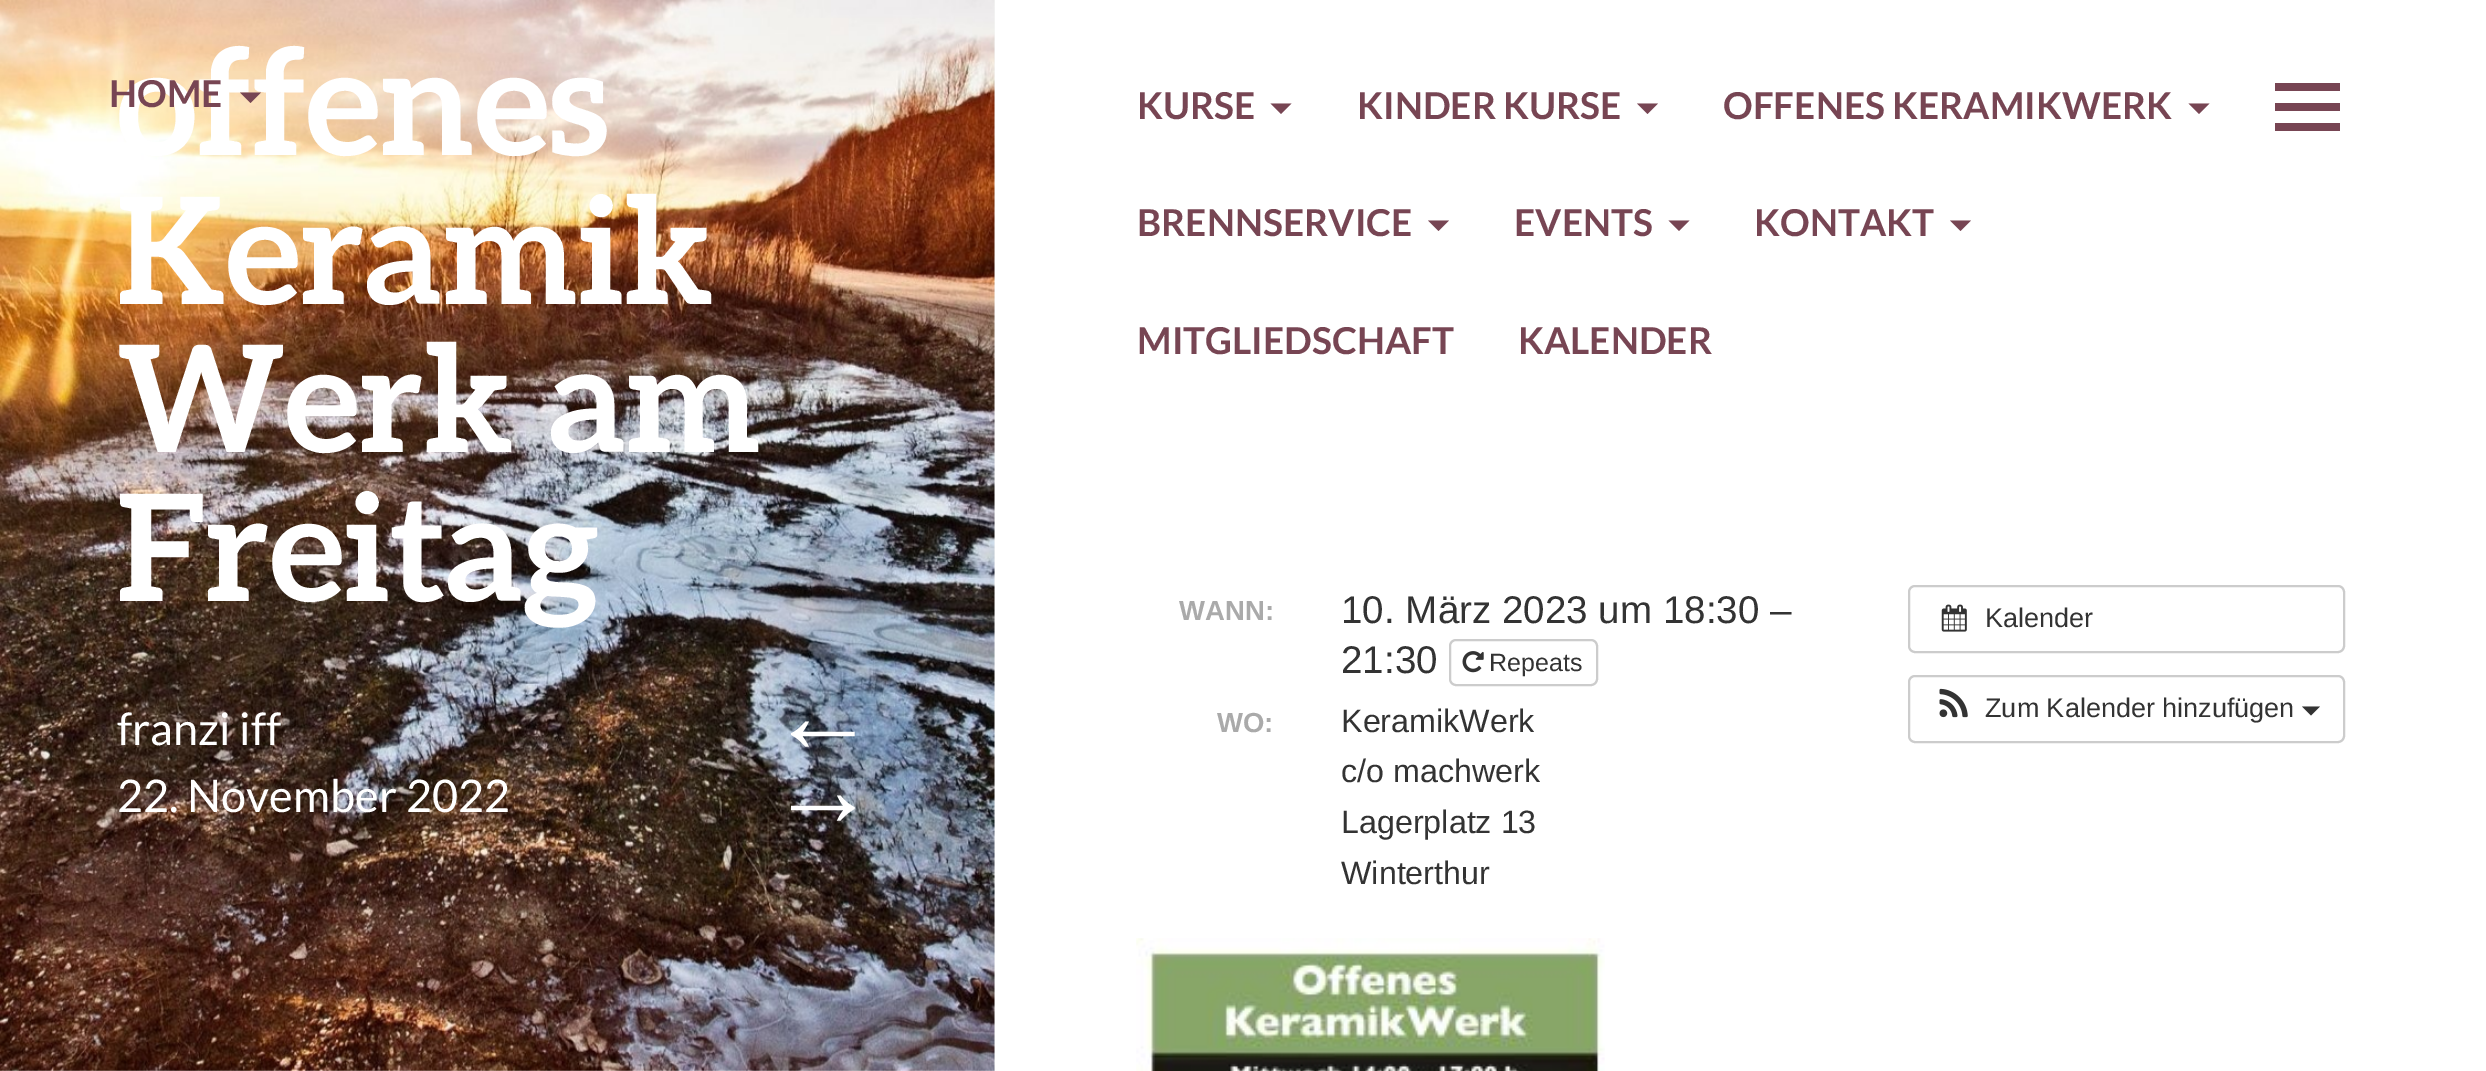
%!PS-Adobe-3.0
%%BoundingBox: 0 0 2486 1071
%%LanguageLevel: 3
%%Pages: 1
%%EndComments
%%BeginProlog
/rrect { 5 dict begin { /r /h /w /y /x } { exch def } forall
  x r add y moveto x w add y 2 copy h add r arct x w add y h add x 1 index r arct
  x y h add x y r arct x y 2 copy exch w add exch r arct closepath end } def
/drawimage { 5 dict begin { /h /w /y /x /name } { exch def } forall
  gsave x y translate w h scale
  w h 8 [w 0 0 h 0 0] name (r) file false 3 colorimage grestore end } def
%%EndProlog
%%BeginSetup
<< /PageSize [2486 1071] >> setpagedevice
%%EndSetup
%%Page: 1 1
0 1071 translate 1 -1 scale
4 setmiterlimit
1 setgray
0 0 2486 1071 rectfill
0.965 0.969 0.965 setrgbcolor
0 0 995 1071 rectfill
(images/1.raw) 0 0 995 1071 drawimage
0.467 0.271 0.325 setrgbcolor
newpath 1270.5 103.5 moveto 1281 114 lineto 1291.5 103.5 lineto closepath fill
newpath 1637 103.5 moveto 1647.5 114 lineto 1658 103.5 lineto closepath fill
newpath 2188.5 103.5 moveto 2199 114 lineto 2209.5 103.5 lineto closepath fill
newpath 1428 220.5 moveto 1438.5 231 lineto 1449 220.5 lineto closepath fill
newpath 1668.5 220.5 moveto 1679 231 lineto 1689.5 220.5 lineto closepath fill
newpath 1950 220.5 moveto 1960.5 231 lineto 1971 220.5 lineto closepath fill
newpath 2340 83 moveto 2340 91 lineto 2275 91 lineto 2275 83 lineto closepath 2275 103 moveto 2340 103 lineto 2340 111 lineto 2275 111 lineto closepath 2275 123 moveto 2340 123 lineto 2340 131 lineto 2275 131 lineto closepath fill
0.8 setgray
2 setlinewidth
1450 640 147 45 6 rrect stroke
(images/2.raw) 1462 651 22 22 drawimage
1909 586 435 66 6 rrect stroke
(images/3.raw) 1941 604 26 28 drawimage
1909 676 435 66 6 rrect stroke
(images/4.raw) 1939 688 29 30 drawimage
0.2 setgray
newpath 2302 706.5 moveto 2320 706.5 lineto 2311 715.5 lineto closepath fill
(images/5.raw) 1136 938 469 133 drawimage
/Aleo-Bold [148.5 0 0 -148.5 0 0] selectfont
1 setgray
117 155 moveto (offenes) show
117 304 moveto (Keramik) show
117 452 moveto (Werk am) show
117 601 moveto (Freitag) show
/Lato-Regular [45 0 0 -45 0 0] selectfont
117 745 moveto (franzi iff) show
117 812 moveto (22. November 2022) show
/LiberationSans-Bold [108 0 0 -108 0 0] selectfont
769 752 moveto (←) show
769 826 moveto (→) show
/Lato-Bold [37.1 0 0 -37.1 0 0] selectfont
0.467 0.271 0.325 setrgbcolor
109 107 moveto (HOME) show
newpath 240 92.5 moveto 250.5 103 lineto 261 92.5 lineto closepath fill
1137 119 moveto (KURSE) show
1357 119 moveto (KINDER KURSE) show
1723 119 moveto (OFFENES KERAMIKWERK) show
1137 236 moveto (BRENNSERVICE) show
1514 236 moveto (EVENTS) show
1754 236 moveto (KONTAKT) show
1137 354 moveto (MITGLIEDSCHAFT) show
1518 354 moveto (KALENDER) show
/LiberationSans-Bold [27.5 0 0 -27.5 0 0] selectfont
0.667 setgray
1179 620 moveto (WANN:) show
/LiberationSans-Regular [38.6 0 0 -38.6 0 0] selectfont
0.2 setgray
1341 623 moveto (10. März 2023 um 18:30 –) show
1341 673 moveto (21:30) show
/LiberationSans-Regular [25 0 0 -25 0 0] selectfont
1489 671 moveto (Repeats) show
/LiberationSans-Bold [27.5 0 0 -27.5 0 0] selectfont
0.667 setgray
1217 732 moveto (WO:) show
/LiberationSans-Regular [32.25 0 0 -32.25 0 0] selectfont
0.2 setgray
1341 732 moveto (KeramikWerk) show
1341 782 moveto (c/o machwerk) show
1341 833 moveto (Lagerplatz 13) show
1341 884 moveto (Winterthur) show
/LiberationSans-Regular [27 0 0 -27 0 0] selectfont
1985 627 moveto (Kalender) show
1985 717 moveto (Zum Kalender hinzufügen) show
showpage
%%EOF
